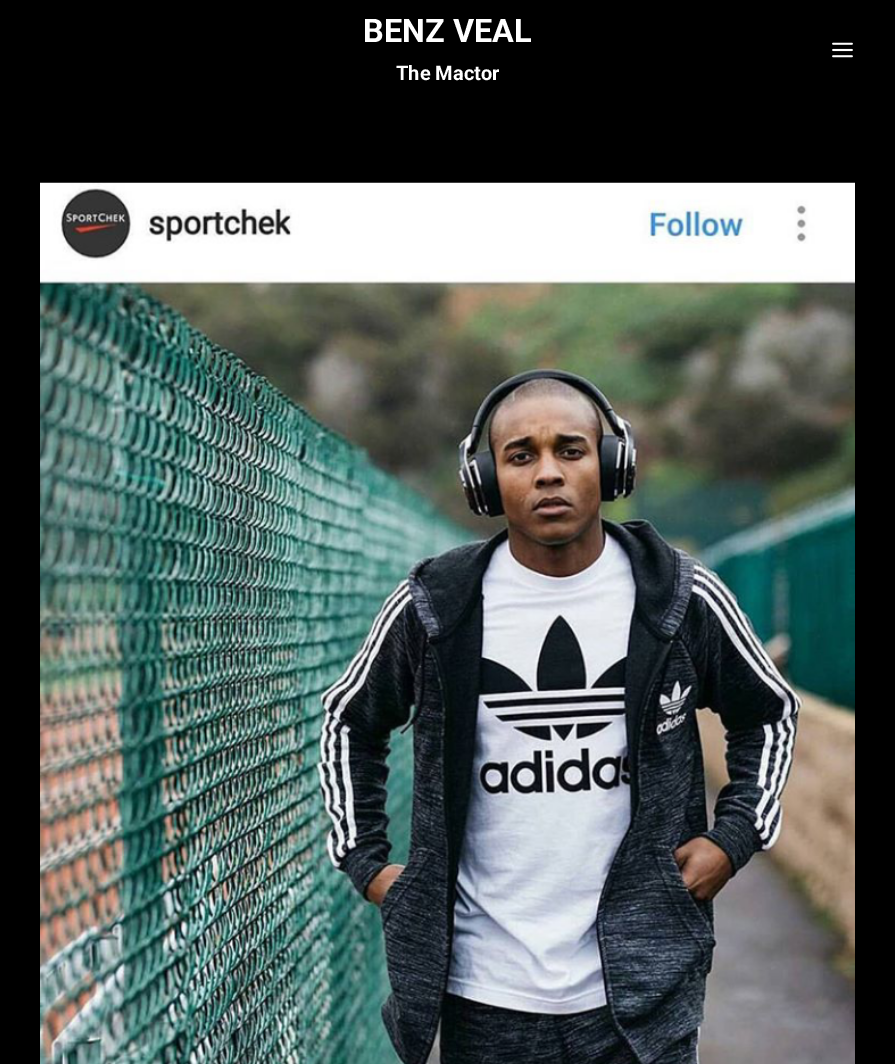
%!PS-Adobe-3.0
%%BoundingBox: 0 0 895 1064
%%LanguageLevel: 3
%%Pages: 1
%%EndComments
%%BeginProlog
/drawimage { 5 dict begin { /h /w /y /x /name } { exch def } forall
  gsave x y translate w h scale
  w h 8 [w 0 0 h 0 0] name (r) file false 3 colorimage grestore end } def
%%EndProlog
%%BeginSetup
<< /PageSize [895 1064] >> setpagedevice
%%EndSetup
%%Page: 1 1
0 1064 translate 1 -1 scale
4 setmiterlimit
0 setgray
0 0 895 1064 rectfill
(images/1.raw) 832 42 21 16 drawimage
(images/2.raw) 40 182 815 882 drawimage
/Roboto-Bold [32.5 0 0 -32.5 0 0] selectfont
1 setgray
363 42 moveto (BENZ VEAL) show
/Roboto-Bold [20 0 0 -20 0 0] selectfont
396 80 moveto (The Mactor) show
showpage
%%EOF
